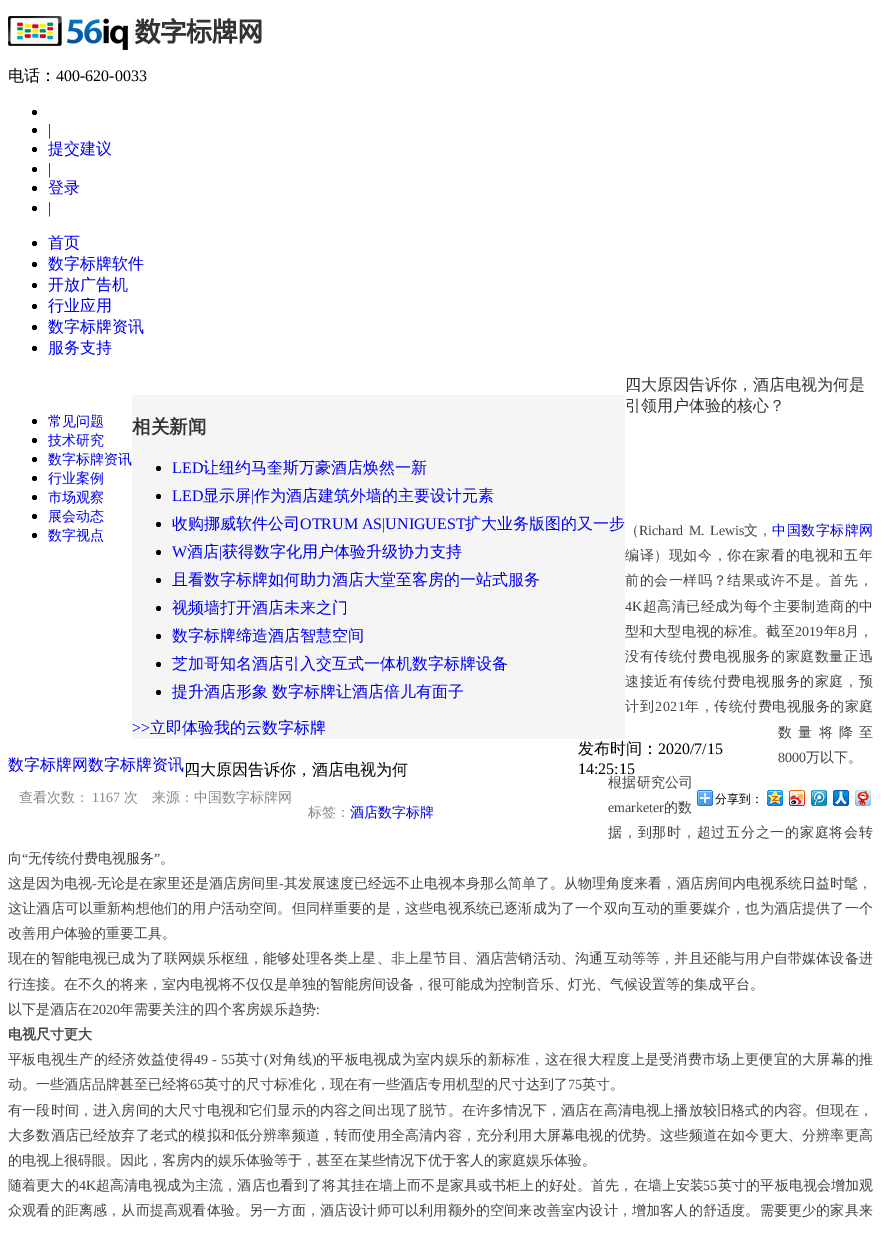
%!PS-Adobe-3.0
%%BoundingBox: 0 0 881 1233
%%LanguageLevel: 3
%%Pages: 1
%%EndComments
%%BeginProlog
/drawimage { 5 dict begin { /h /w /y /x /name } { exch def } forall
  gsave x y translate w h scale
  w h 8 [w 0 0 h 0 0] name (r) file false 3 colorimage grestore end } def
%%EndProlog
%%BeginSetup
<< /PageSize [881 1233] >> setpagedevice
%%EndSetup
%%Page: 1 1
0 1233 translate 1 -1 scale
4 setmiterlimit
1 setgray
0 0 881 1233 rectfill
(images/1.raw) 8 16 254 34 drawimage
0 setgray
newpath 34.5 112.5 2.5 0 360 arc closepath fill
newpath 34.5 130.5 2.5 0 360 arc closepath fill
newpath 34.5 149.5 2.5 0 360 arc closepath fill
newpath 34.5 169.5 2.5 0 360 arc closepath fill
newpath 34.5 188.5 2.5 0 360 arc closepath fill
newpath 34.5 208.5 2.5 0 360 arc closepath fill
newpath 34.5 243.5 2.5 0 360 arc closepath fill
newpath 34.5 264.5 2.5 0 360 arc closepath fill
newpath 34.5 285.5 2.5 0 360 arc closepath fill
newpath 34.5 306.5 2.5 0 360 arc closepath fill
newpath 34.5 327.5 2.5 0 360 arc closepath fill
newpath 34.5 348.5 2.5 0 360 arc closepath fill
(images/2.raw) 697 790 16 16 drawimage
(images/3.raw) 767 790 16 16 drawimage
(images/4.raw) 789 790 16 16 drawimage
(images/5.raw) 811 790 16 16 drawimage
(images/6.raw) 833 790 16 16 drawimage
(images/7.raw) 855 790 16 16 drawimage
newpath 34.5 421.5 2.5 0 360 arc closepath fill
newpath 34.5 440.5 2.5 0 360 arc closepath fill
newpath 34.5 459.5 2.5 0 360 arc closepath fill
newpath 34.5 478.5 2.5 0 360 arc closepath fill
newpath 34.5 497.5 2.5 0 360 arc closepath fill
newpath 34.5 516.5 2.5 0 360 arc closepath fill
newpath 34.5 535.5 2.5 0 360 arc closepath fill
0.961 setgray
132 395 493 344 rectfill
0 setgray
newpath 158.5 468.5 2.5 0 360 arc closepath fill
newpath 158.5 496.5 2.5 0 360 arc closepath fill
newpath 158.5 524.5 2.5 0 360 arc closepath fill
newpath 158.5 552.5 2.5 0 360 arc closepath fill
newpath 158.5 580.5 2.5 0 360 arc closepath fill
newpath 158.5 608.5 2.5 0 360 arc closepath fill
newpath 158.5 636.5 2.5 0 360 arc closepath fill
newpath 158.5 664.5 2.5 0 360 arc closepath fill
newpath 158.5 692.5 2.5 0 360 arc closepath fill
/WenQuanYiZenHei-Medium [16 0 0 -16 0 0] selectfont
8 81 moveto (电话：) show
/LiberationSerif-Regular [16 0 0 -16 0 0] selectfont
56 81 moveto (400-620-0033) show
48 135 moveto (|) show
/WenQuanYiZenHei-Medium [16 0 0 -16 0 0] selectfont
0 0 0.933 setrgbcolor
48 154 moveto (提交建议) show
/LiberationSerif-Regular [16 0 0 -16 0 0] selectfont
0 setgray
48 174 moveto (|) show
/WenQuanYiZenHei-Medium [16 0 0 -16 0 0] selectfont
0 0 0.933 setrgbcolor
48 193 moveto (登录) show
/LiberationSerif-Regular [16 0 0 -16 0 0] selectfont
0 setgray
48 213 moveto (|) show
/WenQuanYiZenHei-Medium [16 0 0 -16 0 0] selectfont
0 0 0.933 setrgbcolor
48 248 moveto (首页) show
48 269 moveto (数字标牌软件) show
48 290 moveto (开放广告机) show
48 311 moveto (行业应用) show
48 332 moveto (数字标牌资讯) show
48 353 moveto (服务支持) show
0.2 setgray
625 390 moveto (四大原因告诉你，酒店电视为何是) show
625 411 moveto (引领用户体验的核心？) show
/WenQuanYiZenHei-Medium [14 0 0 -14 0 0] selectfont
0.267 setgray
625 535 moveto (（) show
/LiberationSerif-Regular [14 0 0 -14 0 0] selectfont
639 535 moveto 2 0 32 (Richard M. Lewis) widthshow
/WenQuanYiZenHei-Medium [14 0 0 -14 0 0] selectfont
744 535 moveto (文，) show
0 0 0.933 setrgbcolor
772 535 moveto 0.5 0 (中国数字标牌网) ashow
0.267 setgray
625 560 moveto 0.6 0 (编译）现如今，你在家看的电视和五年) ashow
625 585 moveto 0.6 0 (前的会一样吗？结果或许不是。首先，) ashow
/LiberationSerif-Regular [14 0 0 -14 0 0] selectfont
625 611 moveto 0.4 0 (4K) ashow
/WenQuanYiZenHei-Medium [14 0 0 -14 0 0] selectfont
643 611 moveto 0.4 0 (超高清已经成为每个主要制造商的中) ashow
625 636 moveto 0.15 0 (型和大型电视的标准。截至) ashow
/LiberationSerif-Regular [14 0 0 -14 0 0] selectfont
795 636 moveto 0.15 0 (2019) ashow
/WenQuanYiZenHei-Medium [14 0 0 -14 0 0] selectfont
824 636 moveto 0.15 0 (年) ashow
/LiberationSerif-Regular [14 0 0 -14 0 0] selectfont
838 636 moveto 0.15 0 (8) ashow
/WenQuanYiZenHei-Medium [14 0 0 -14 0 0] selectfont
845 636 moveto 0.15 0 (月，) ashow
625 661 moveto 0.6 0 (没有传统付费电视服务的家庭数量正迅) ashow
625 686 moveto 0.6 0 (速接近有传统付费电视服务的家庭，预) ashow
625 711 moveto 0.5 0 (计到) ashow
/LiberationSerif-Regular [14 0 0 -14 0 0] selectfont
655 711 moveto 0.5 0 (2021) ashow
/WenQuanYiZenHei-Medium [14 0 0 -14 0 0] selectfont
685 711 moveto 0.5 0 (年，传统付费电视服务的家庭) ashow
778 737 moveto 6.25 0 (数量将降至) ashow
/LiberationSerif-Regular [14 0 0 -14 0 0] selectfont
778 762 moveto (8000) show
/WenQuanYiZenHei-Medium [14 0 0 -14 0 0] selectfont
806 762 moveto (万以下。) show
608 787 moveto 0.25 0 (根据研究公司) ashow
/LiberationSerif-Regular [14 0 0 -14 0 0] selectfont
608 812 moveto (emarketer) show
/WenQuanYiZenHei-Medium [14 0 0 -14 0 0] selectfont
664 812 moveto (的数) show
608 837 moveto 0.75 0 (据，到那时，超过五分之一的家庭将会转) ashow
8 863 moveto (向) show
/LiberationSerif-Regular [14 0 0 -14 0 0] selectfont
22 863 moveto (“) show
/WenQuanYiZenHei-Medium [14 0 0 -14 0 0] selectfont
28 863 moveto (无传统付费电视服务) show
/LiberationSerif-Regular [14 0 0 -14 0 0] selectfont
154 863 moveto (”) show
/WenQuanYiZenHei-Medium [14 0 0 -14 0 0] selectfont
160 863 moveto (。) show
8 888 moveto (这是因为电视) show
/LiberationSerif-Regular [14 0 0 -14 0 0] selectfont
92 888 moveto (-) show
/WenQuanYiZenHei-Medium [14 0 0 -14 0 0] selectfont
97 888 moveto (无论是在家里还是酒店房间里) show
/LiberationSerif-Regular [14 0 0 -14 0 0] selectfont
279 888 moveto (-) show
/WenQuanYiZenHei-Medium [14 0 0 -14 0 0] selectfont
284 888 moveto (其发展速度已经远不止电视本身那么简单了。从物理角度来看，酒店房间内电视系统日益时髦，) show
8 913 moveto 0.18 0 (这让酒店可以重新构想他们的用户活动空间。但同样重要的是，这些电视系统已逐渐成为了一个双向互动的重要媒介，也为酒店提供了一个) ashow
8 938 moveto (改善用户体验的重要工具。) show
8 963 moveto 0.18 0 (现在的智能电视已成为了联网娱乐枢纽，能够处理各类上星、非上星节目、酒店营销活动、沟通互动等等，并且还能与用户自带媒体设备进) ashow
8 989 moveto (行连接。在不久的将来，室内电视将不仅仅是单独的智能房间设备，很可能成为控制音乐、灯光、气候设置等的集成平台。) show
8 1014 moveto (以下是酒店在) show
/LiberationSerif-Regular [14 0 0 -14 0 0] selectfont
92 1014 moveto (2020) show
/WenQuanYiZenHei-Medium [14 0 0 -14 0 0] selectfont
120 1014 moveto (年需要关注的四个客房娱乐趋势) show
/LiberationSerif-Regular [14 0 0 -14 0 0] selectfont
316 1014 moveto (:) show
/WenQuanYiZenHei-Bold [14 0 0 -14 0 0] selectfont
8 1039 moveto (电视尺寸更大) show
/WenQuanYiZenHei-Medium [14 0 0 -14 0 0] selectfont
8 1064 moveto 0.3 0 (平板电视生产的经济效益使得) ashow
/LiberationSerif-Regular [14 0 0 -14 0 0] selectfont
194 1064 moveto 0.3 0 (49 - 55) ashow
/WenQuanYiZenHei-Medium [14 0 0 -14 0 0] selectfont
235 1064 moveto 0.3 0 (英寸) ashow
/LiberationSerif-Regular [14 0 0 -14 0 0] selectfont
264 1064 moveto 0.3 0 (\() ashow
/WenQuanYiZenHei-Medium [14 0 0 -14 0 0] selectfont
269 1064 moveto 0.3 0 (对角线) ashow
/LiberationSerif-Regular [14 0 0 -14 0 0] selectfont
312 1064 moveto 0.3 0 (\)) ashow
/WenQuanYiZenHei-Medium [14 0 0 -14 0 0] selectfont
316 1064 moveto 0.3 0 (的平板电视成为室内娱乐的新标准，这在很大程度上是受消费市场上更便宜的大屏幕的推) ashow
8 1089 moveto (动。一些酒店品牌甚至已经将) show
/LiberationSerif-Regular [14 0 0 -14 0 0] selectfont
190 1089 moveto (65) show
/WenQuanYiZenHei-Medium [14 0 0 -14 0 0] selectfont
204 1089 moveto (英寸的尺寸标准化，现在有一些酒店专用机型的尺寸达到了) show
/LiberationSerif-Regular [14 0 0 -14 0 0] selectfont
568 1089 moveto (75) show
/WenQuanYiZenHei-Medium [14 0 0 -14 0 0] selectfont
582 1089 moveto (英寸。) show
8 1115 moveto 0.18 0 (有一段时间，进入房间的大尺寸电视和它们显示的内容之间出现了脱节。在许多情况下，酒店在高清电视上播放较旧格式的内容。但现在，) ashow
8 1140 moveto 0.18 0 (大多数酒店已经放弃了老式的模拟和低分辨率频道，转而使用全高清内容，充分利用大屏幕电视的优势。这些频道在如今更大、分辨率更高) ashow
8 1165 moveto (的电视上很碍眼。因此，客房内的娱乐体验等于，甚至在某些情况下优于客人的家庭娱乐体验。) show
8 1190 moveto 0.15 0 (随着更大的) ashow
/LiberationSerif-Regular [14 0 0 -14 0 0] selectfont
79 1190 moveto 0.15 0 (4K) ashow
/WenQuanYiZenHei-Medium [14 0 0 -14 0 0] selectfont
96 1190 moveto 0.15 0 (超高清电视成为主流，酒店也看到了将其挂在墙上而不是家具或书柜上的好处。首先，在墙上安装) ashow
/LiberationSerif-Regular [14 0 0 -14 0 0] selectfont
703 1190 moveto 0.15 0 (55) ashow
/WenQuanYiZenHei-Medium [14 0 0 -14 0 0] selectfont
718 1190 moveto 0.15 0 (英寸的平板电视会增加观) ashow
8 1215 moveto 0.18 0 (众观看的距离感，从而提高观看体验。另一方面，酒店设计师可以利用额外的空间来改善室内设计，增加客人的舒适度。需要更少的家具来) ashow
/WenQuanYiZenHei-Medium [16 0 0 -16 0 0] selectfont
0 setgray
578 754 moveto (发布时间：) show
/LiberationSerif-Regular [16 0 0 -16 0 0] selectfont
658 754 moveto (2020/7/15) show
578 774 moveto (14:25:15) show
/WenQuanYiZenHei-Medium [14 0 0 -14 0 0] selectfont
0.533 setgray
19 802 moveto (查看次数：) show
/LiberationSerif-Regular [14 0 0 -14 0 0] selectfont
92 802 moveto (1167) show
/WenQuanYiZenHei-Medium [14 0 0 -14 0 0] selectfont
124 802 moveto (次) show
152 802 moveto (来源：中国数字标牌网) show
/WenQuanYiZenHei-Medium [16 0 0 -16 0 0] selectfont
0 0 0.933 setrgbcolor
8 770 moveto (数字标牌网数字标牌资讯) show
0 setgray
184 775 moveto (四大原因告诉你，酒店电视为何) show
/WenQuanYiZenHei-Medium [12 0 0 -12 0 0] selectfont
715 803 moveto (分享到：) show
/WenQuanYiZenHei-Medium [14 0 0 -14 0 0] selectfont
0.533 setgray
308 817 moveto (标签：) show
0 0 0.933 setrgbcolor
350 817 moveto (酒店数字标牌) show
48 426 moveto (常见问题) show
48 445 moveto (技术研究) show
48 464 moveto (数字标牌资讯) show
48 483 moveto (行业案例) show
48 502 moveto (市场观察) show
48 521 moveto (展会动态) show
48 540 moveto (数字视点) show
/WenQuanYiZenHei-Bold [18.5 0 0 -18.5 0 0] selectfont
0.2 setgray
132 433 moveto (相关新闻) show
/LiberationSerif-Regular [16 0 0 -16 0 0] selectfont
0 0 0.933 setrgbcolor
172 473 moveto (LED) show
/WenQuanYiZenHei-Medium [16 0 0 -16 0 0] selectfont
203 473 moveto (让纽约马奎斯万豪酒店焕然一新) show
/LiberationSerif-Regular [16 0 0 -16 0 0] selectfont
172 501 moveto (LED) show
/WenQuanYiZenHei-Medium [16 0 0 -16 0 0] selectfont
203 501 moveto (显示屏) show
/LiberationSerif-Regular [16 0 0 -16 0 0] selectfont
251 501 moveto (|) show
/WenQuanYiZenHei-Medium [16 0 0 -16 0 0] selectfont
254 501 moveto (作为酒店建筑外墙的主要设计元素) show
172 529 moveto (收购挪威软件公司) show
/LiberationSerif-Regular [16 0 0 -16 0 0] selectfont
300 529 moveto (OTRUM AS|UNIGUEST) show
/WenQuanYiZenHei-Medium [16 0 0 -16 0 0] selectfont
465 529 moveto (扩大业务版图的又一步) show
/LiberationSerif-Regular [16 0 0 -16 0 0] selectfont
172 557 moveto (W) show
/WenQuanYiZenHei-Medium [16 0 0 -16 0 0] selectfont
187 557 moveto (酒店) show
/LiberationSerif-Regular [16 0 0 -16 0 0] selectfont
219 557 moveto (|) show
/WenQuanYiZenHei-Medium [16 0 0 -16 0 0] selectfont
222 557 moveto (获得数字化用户体验升级协力支持) show
172 585 moveto (且看数字标牌如何助力酒店大堂至客房的一站式服务) show
172 613 moveto (视频墙打开酒店未来之门) show
172 641 moveto (数字标牌缔造酒店智慧空间) show
172 669 moveto (芝加哥知名酒店引入交互式一体机数字标牌设备) show
172 697 moveto -1 0 32 (提升酒店形象 数字标牌让酒店倍儿有面子) widthshow
/LiberationSerif-Regular [16 0 0 -16 0 0] selectfont
132 733 moveto (>>) show
/WenQuanYiZenHei-Medium [16 0 0 -16 0 0] selectfont
150 733 moveto (立即体验我的云数字标牌) show
showpage
%%EOF
